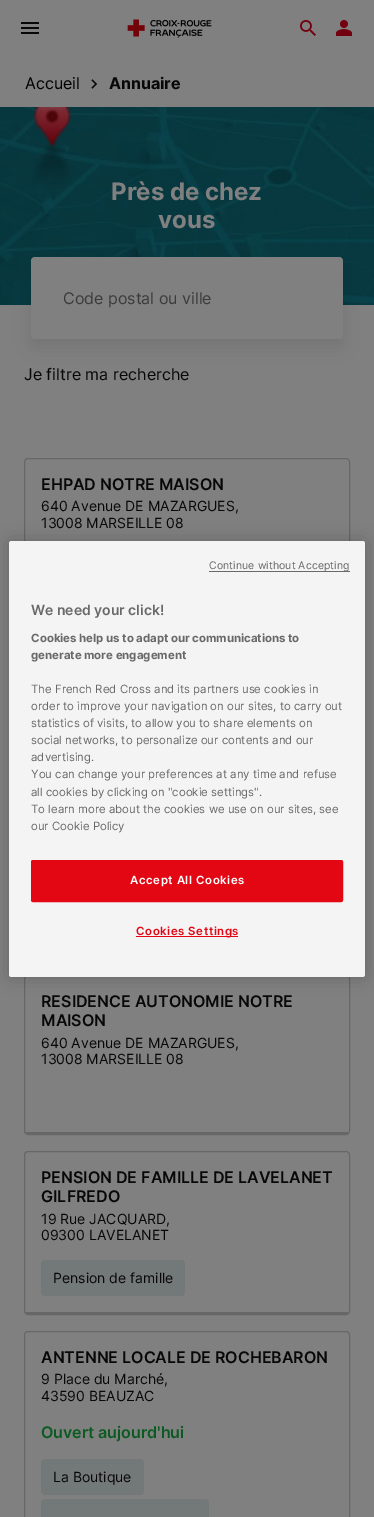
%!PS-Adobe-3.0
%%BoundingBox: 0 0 374 1517
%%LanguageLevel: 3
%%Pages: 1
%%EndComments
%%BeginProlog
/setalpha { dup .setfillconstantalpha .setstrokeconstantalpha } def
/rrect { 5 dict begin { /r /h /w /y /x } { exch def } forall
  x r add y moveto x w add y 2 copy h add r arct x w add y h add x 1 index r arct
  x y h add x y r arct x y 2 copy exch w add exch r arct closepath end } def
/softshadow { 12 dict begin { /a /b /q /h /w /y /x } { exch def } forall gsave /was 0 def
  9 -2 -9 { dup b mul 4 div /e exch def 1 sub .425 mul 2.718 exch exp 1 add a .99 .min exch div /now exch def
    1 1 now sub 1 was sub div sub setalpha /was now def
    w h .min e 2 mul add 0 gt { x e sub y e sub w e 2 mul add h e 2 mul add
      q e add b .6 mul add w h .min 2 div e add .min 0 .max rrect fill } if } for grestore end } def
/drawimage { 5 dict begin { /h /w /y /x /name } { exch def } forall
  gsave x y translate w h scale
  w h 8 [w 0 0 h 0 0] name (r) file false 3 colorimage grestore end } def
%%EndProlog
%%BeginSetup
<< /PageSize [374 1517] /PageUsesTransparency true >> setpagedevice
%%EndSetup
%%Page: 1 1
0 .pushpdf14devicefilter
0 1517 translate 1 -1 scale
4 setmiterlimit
0.502 setgray
0 0 374 1517 rectfill
(images/1.raw) 21 22 18 12 drawimage
(images/2.raw) 127 19 85 19 drawimage
(images/3.raw) 300 20 16 16 drawimage
(images/4.raw) 336 20 16 16 drawimage
(images/5.raw) 91 79 7 10 drawimage
(images/6.raw) 0 107 374 198 drawimage
0 setgray
31 265 312 82 4 8 0.1 softshadow
0.502 setgray
31 257 312 82 4 rrect fill
0.404 setgray
24.5 458.5 325 262 3.5 rrect stroke
24.5 975.5 325 159 3.5 rrect stroke
26 1132 322 2 rectfill
24.5 1151.5 325 163 3.5 rrect stroke
26 1312 322 2 rectfill
0.451 0.471 0.471 setrgbcolor
41 1260 144 36 4 rrect fill
0.404 setgray
24.5 1331.5 325 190 3.5 rrect stroke
0.451 0.471 0.471 setrgbcolor
41 1459 103 36 4 rrect fill
41 1499 168 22 4 rrect fill
0 setgray
9 541 356 436 2.5 9 0.2 softshadow
0.957 setgray
9 541 356 436 2.5 rrect fill
0.412 setgray
209 571 141 1 rectfill
0.89 0.024 0.075 setrgbcolor
31.5 860.5 311 41 1.5 rrect gsave fill grestore
stroke
136 936 102 1 rectfill
/Inter-Regular [16 0 0 -16 0 0] selectfont
0 setgray
25 89 moveto (Accueil) show
/Inter-Bold [16 0 0 -16 0 0] selectfont
0.031 setgray
109 89 moveto (Annuaire) show
/Inter-Bold [24 0 0 -24 0 0] selectfont
0.502 setgray
111 200 moveto (Près de chez) show
158 228 moveto (vous) show
/Inter-Regular [16 0 0 -16 0 0] selectfont
0.231 setgray
63 304 moveto (Code postal ou ville) show
0.031 setgray
24 380 moveto (Je filtre ma recherche) show
/Inter-SemiBold [16 0 0 -16 0 0] selectfont
41 490 moveto (EHPAD NOTRE MAISON) show
/Inter-Regular [14 0 0 -14 0 0] selectfont
41 511 moveto (640 Avenue DE MAZARGUES,) show
41 528 moveto (13008 MARSEILLE 08) show
/Inter-SemiBold [16 0 0 -16 0 0] selectfont
41 1007 moveto (RESIDENCE AUTONOMIE NOTRE) show
41 1026 moveto (MAISON) show
/Inter-Regular [14 0 0 -14 0 0] selectfont
41 1048 moveto (640 Avenue DE MAZARGUES,) show
41 1064 moveto (13008 MARSEILLE 08) show
/Inter-SemiBold [16 0 0 -16 0 0] selectfont
41 1183 moveto (PENSION DE FAMILLE DE LAVELANET) show
41 1202 moveto (GILFREDO) show
/Inter-Regular [14 0 0 -14 0 0] selectfont
41 1224 moveto (19 Rue JACQUARD,) show
41 1240 moveto (09300 LAVELANET) show
53 1283 moveto (Pension de famille) show
/Inter-SemiBold [16 0 0 -16 0 0] selectfont
41 1363 moveto (ANTENNE LOCALE DE ROCHEBARON) show
/Inter-Regular [14 0 0 -14 0 0] selectfont
41 1384 moveto (9 Place du Marché,) show
41 1401 moveto (43590 BEAUZAC) show
/Inter-SemiBold [16 0 0 -16 0 0] selectfont
0.043 0.353 0.129 setrgbcolor
41 1438 moveto (Ouvert aujourd'hui) show
/Inter-Regular [14 0 0 -14 0 0] selectfont
0.031 setgray
53 1482 moveto (La Boutique) show
/Inter-Regular [10.5 0 0 -10.5 0 0] selectfont
0.412 setgray
209 569 moveto 0.1 0 (Continue without Accepting) ashow
/Inter-SemiBold [14 0 0 -14 0 0] selectfont
31 615 moveto (We need your click!) show
/Inter-Bold [11.4 0 0 -11.4 0 0] selectfont
31 642 moveto (Cookies help us to adapt our communications to) show
31 659 moveto (generate more engagement) show
/Inter-Regular [11.4 0 0 -11.4 0 0] selectfont
31 693 moveto (The French Red Cross and its partners use cookies in) show
31 710 moveto (order to improve your navigation on our sites, to carry out) show
31 727 moveto (statistics of visits, to allow you to share elements on) show
31 744 moveto (social networks, to personalize our contents and our) show
31 761 moveto (advertising.) show
31 778 moveto (You can change your preferences at any time and refuse) show
31 796 moveto (all cookies by clicking on "cookie settings".) show
31 813 moveto (To learn more about the cookies we use on our sites, see) show
31 830 moveto (our Cookie Policy) show
/Inter-SemiBold [11.4 0 0 -11.4 0 0] selectfont
1 setgray
130 884 moveto 0.6 0 (Accept All Cookies) ashow
0.89 0.024 0.075 setrgbcolor
136 935 moveto 0.6 0 (Cookies Settings) ashow
.poppdf14devicefilter showpage
%%EOF
